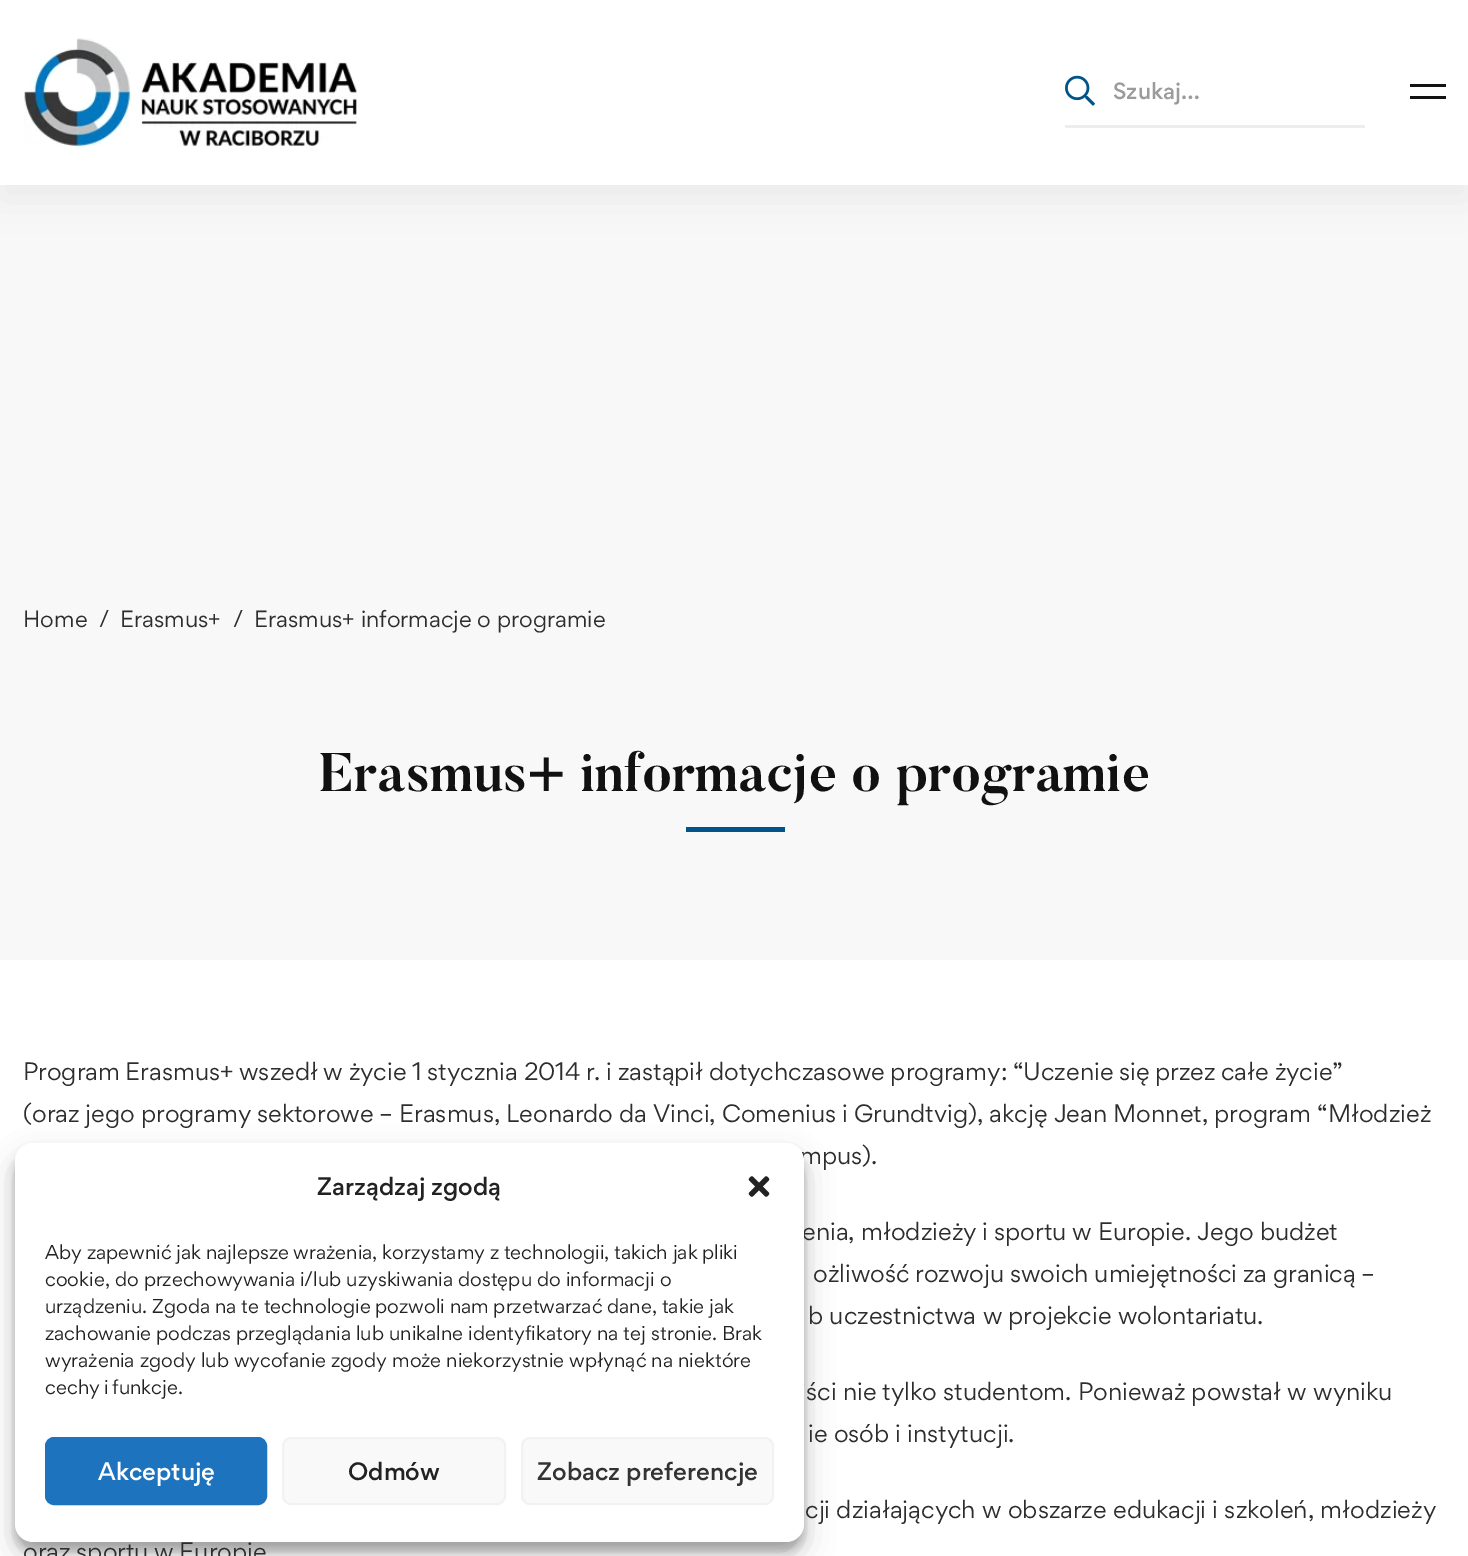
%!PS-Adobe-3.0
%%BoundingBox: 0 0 1468 1556
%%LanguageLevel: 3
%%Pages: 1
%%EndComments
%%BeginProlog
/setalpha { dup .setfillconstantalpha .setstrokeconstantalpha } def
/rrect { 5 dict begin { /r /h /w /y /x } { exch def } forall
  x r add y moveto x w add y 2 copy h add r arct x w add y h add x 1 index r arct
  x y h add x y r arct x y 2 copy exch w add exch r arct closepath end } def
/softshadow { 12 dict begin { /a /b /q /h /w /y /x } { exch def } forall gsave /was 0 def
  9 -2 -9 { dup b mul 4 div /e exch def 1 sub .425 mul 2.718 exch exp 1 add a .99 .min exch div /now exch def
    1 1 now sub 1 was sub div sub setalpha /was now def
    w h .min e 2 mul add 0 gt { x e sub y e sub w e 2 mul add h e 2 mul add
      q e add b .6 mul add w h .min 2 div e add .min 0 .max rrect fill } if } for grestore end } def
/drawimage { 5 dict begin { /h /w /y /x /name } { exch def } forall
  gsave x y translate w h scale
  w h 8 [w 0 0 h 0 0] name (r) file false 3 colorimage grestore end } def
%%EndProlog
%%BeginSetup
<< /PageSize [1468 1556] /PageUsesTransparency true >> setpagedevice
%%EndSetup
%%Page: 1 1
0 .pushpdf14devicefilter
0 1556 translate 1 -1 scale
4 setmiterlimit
1 setgray
0 0 1468 1556 rectfill
0.973 setgray
0 185 1468 775 rectfill
0 setgray
0 15 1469 185 0 19.5 0.05 softshadow
1 setgray
0 0 1468 185 rectfill
(images/1.raw) 24 38 333 109 drawimage
(images/2.raw) 1065 75 30 31 drawimage
0.929 setgray
1065 125 300 3 rectfill
0.075 setgray
1410 84 36 3 rectfill
1410 96 36 3 rectfill
0 0.329 0.537 setrgbcolor
686 827 99 5 rectfill
0 setgray
15 1152 789 399 18 4.5 0.23 softshadow
15 1158 789 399 18 15 0.19 softshadow
/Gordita-Medium [21 0 0 -21 0 0] selectfont
0.608 setgray
1113 99 moveto (Szukaj…) show
/Gordita-Regular [21 0 0 -21 0 0] selectfont
0.176 setgray
23 627 moveto (Home) show
99 627 moveto (/) show
120 627 moveto (Erasmus+) show
233 627 moveto (/) show
254 627 moveto (Erasmus+ informacje o programie) show
/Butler-Bold [54 0 0 -54 0 0] selectfont
0.067 setgray
319 791 moveto (Erasmus+ informacje o programie) show
/Gordita-Regular [22.5 0 0 -22.5 0 0] selectfont
0.176 setgray
23 1080 moveto -0.7 0 32 (Program Erasmus+ wszedł w życie 1 stycznia 2014 r. i zastąpił dotychczasowe programy: “Uczenie się przez całe życie”) widthshow
23 1122 moveto -0.25 0 32 (\(oraz jego programy sektorowe – Erasmus, Leonardo da Vinci, Comenius i Grundtvig\), akcję Jean Monnet, program “Młodzież) widthshow
800 1164 moveto (mpus\).) show
802 1240 moveto -0.25 0 32 (enia, młodzieży i sportu w Europie. Jego budżet) widthshow
813 1282 moveto -0.5 0 32 (ożliwość rozwoju swoich umiejętności za granicą –) widthshow
808 1324 moveto (b uczestnictwa w projekcie wolontariatu.) show
806 1400 moveto (ści nie tylko studentom. Ponieważ powstał w wyniku) show
808 1442 moveto (ie osób i instytucji.) show
805 1518 moveto (cji działających w obszarze edukacji i szkoleń, młodzieży) show
23 1560 moveto -0.5 0 32 (oraz sportu w Europie) widthshow
1 setgray
15 1143 789 399 18 rrect fill
/Gordita-Medium [22.5 0 0 -22.5 0 0] selectfont
0.133 setgray
317 1195 moveto (Zarządzaj zgodą) show
(images/3.raw) 748 1176 22 21 drawimage
/Gordita-Regular [18 0 0 -18 0 0] selectfont
45 1259 moveto -0.25 0 32 (Aby zapewnić jak najlepsze wrażenia, korzystamy z technologii, takich jak pliki) widthshow
45 1286 moveto (cookie, do przechowywania i/lub uzyskiwania dostępu do informacji o) show
45 1313 moveto -0.25 0 32 (urządzeniu. Zgoda na te technologie pozwoli nam przetwarzać dane, takie jak) widthshow
45 1340 moveto (zachowanie podczas przeglądania lub unikalne identyfikatory na tej stronie. Brak) show
45 1367 moveto (wyrażenia zgody lub wycofanie zgody może niekorzystnie wpłynąć na niektóre) show
45 1394 moveto -1 0 32 (cechy i funkcje.) widthshow
0.118 0.451 0.745 setrgbcolor
46 1438 220 66 8 rrect gsave fill grestore
2 setlinewidth
stroke
/Gordita-Medium [22.5 0 0 -22.5 0 0] selectfont
1 setgray
98 1480 moveto (Akceptuję) show
0.976 setgray
283 1438 222 66 8 rrect gsave fill grestore
0.949 setgray
stroke
0.133 setgray
348 1480 moveto (Odmów) show
0.976 setgray
522 1438 251 66 8 rrect gsave fill grestore
0.949 setgray
stroke
0.2 setgray
537 1480 moveto (Zobacz preferencje) show
.poppdf14devicefilter showpage
%%EOF
